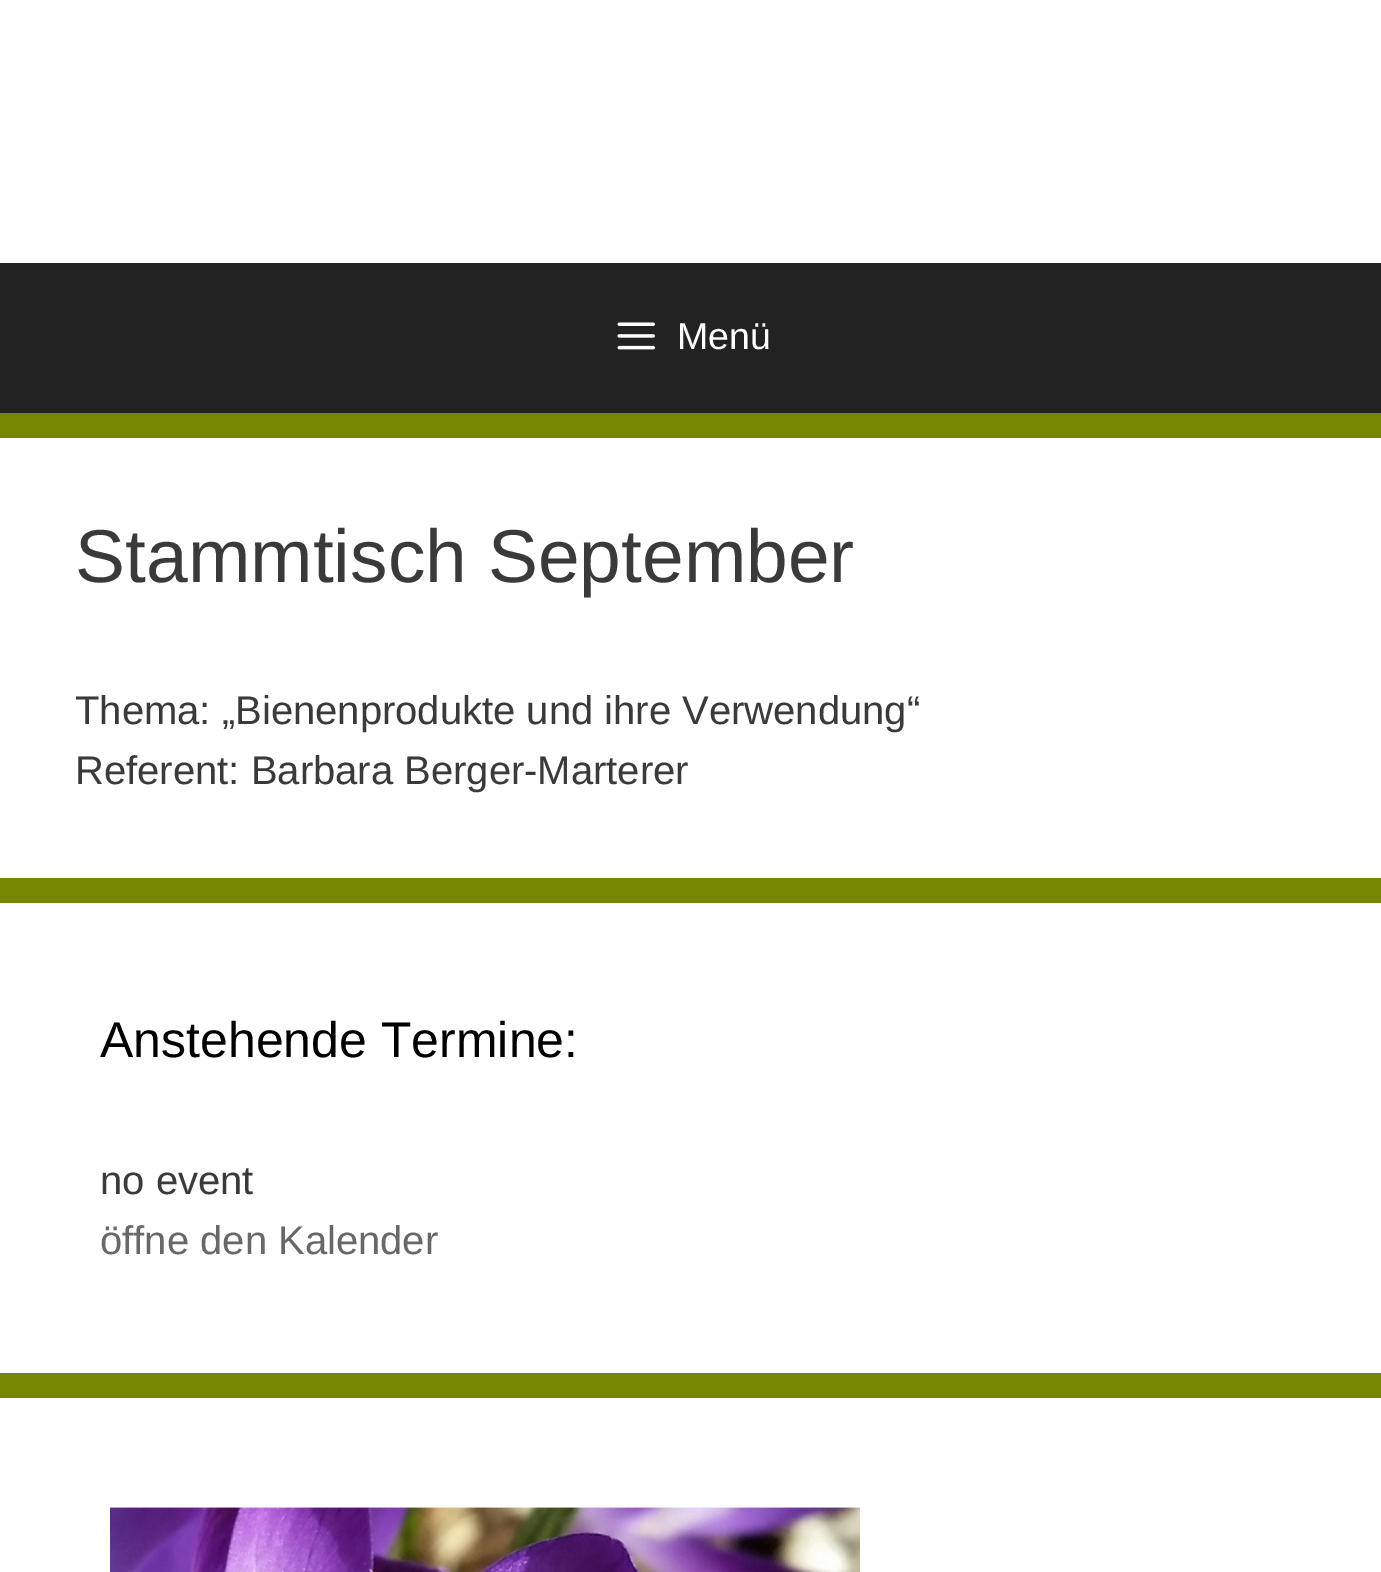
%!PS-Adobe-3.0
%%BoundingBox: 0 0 1381 1572
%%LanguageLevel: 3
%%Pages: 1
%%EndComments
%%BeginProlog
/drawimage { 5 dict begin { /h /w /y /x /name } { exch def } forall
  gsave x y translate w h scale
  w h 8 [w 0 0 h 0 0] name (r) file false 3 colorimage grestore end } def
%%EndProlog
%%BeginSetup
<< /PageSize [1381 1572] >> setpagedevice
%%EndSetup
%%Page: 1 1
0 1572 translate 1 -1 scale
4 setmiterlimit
0.459 0.529 0 setrgbcolor
0 0 1381 1572 rectfill
1 setgray
0 0 1381 263 rectfill
0.133 setgray
0 263 1381 150 rectfill
(images/1.raw) 617 322 38 28 drawimage
1 setgray
0 438 1381 440 rectfill
0 903 1381 470 rectfill
0 1398 1381 174 rectfill
(images/2.raw) 110 1507 750 65 drawimage
/LiberationSans-Regular [37.5 0 0 -37.5 0 0] selectfont
677 349 moveto (Menü) show
/LiberationSans-Regular [75 0 0 -75 0 0] selectfont
0.227 setgray
75 582 moveto (Stammtisch September) show
/LiberationSans-Regular [40 0 0 -40 0 0] selectfont
75 724 moveto (Thema: „Bienenprodukte und ihre Verwendung“) show
75 784 moveto (Referent: Barbara Berger-Marterer) show
/LiberationSans-Regular [50 0 0 -50 0 0] selectfont
0 setgray
100 1057 moveto (Anstehende Termine:) show
/LiberationSans-Regular [40 0 0 -40 0 0] selectfont
0.227 setgray
100 1194 moveto (no event) show
0.408 setgray
100 1254 moveto (öffne den Kalender) show
showpage
%%EOF
